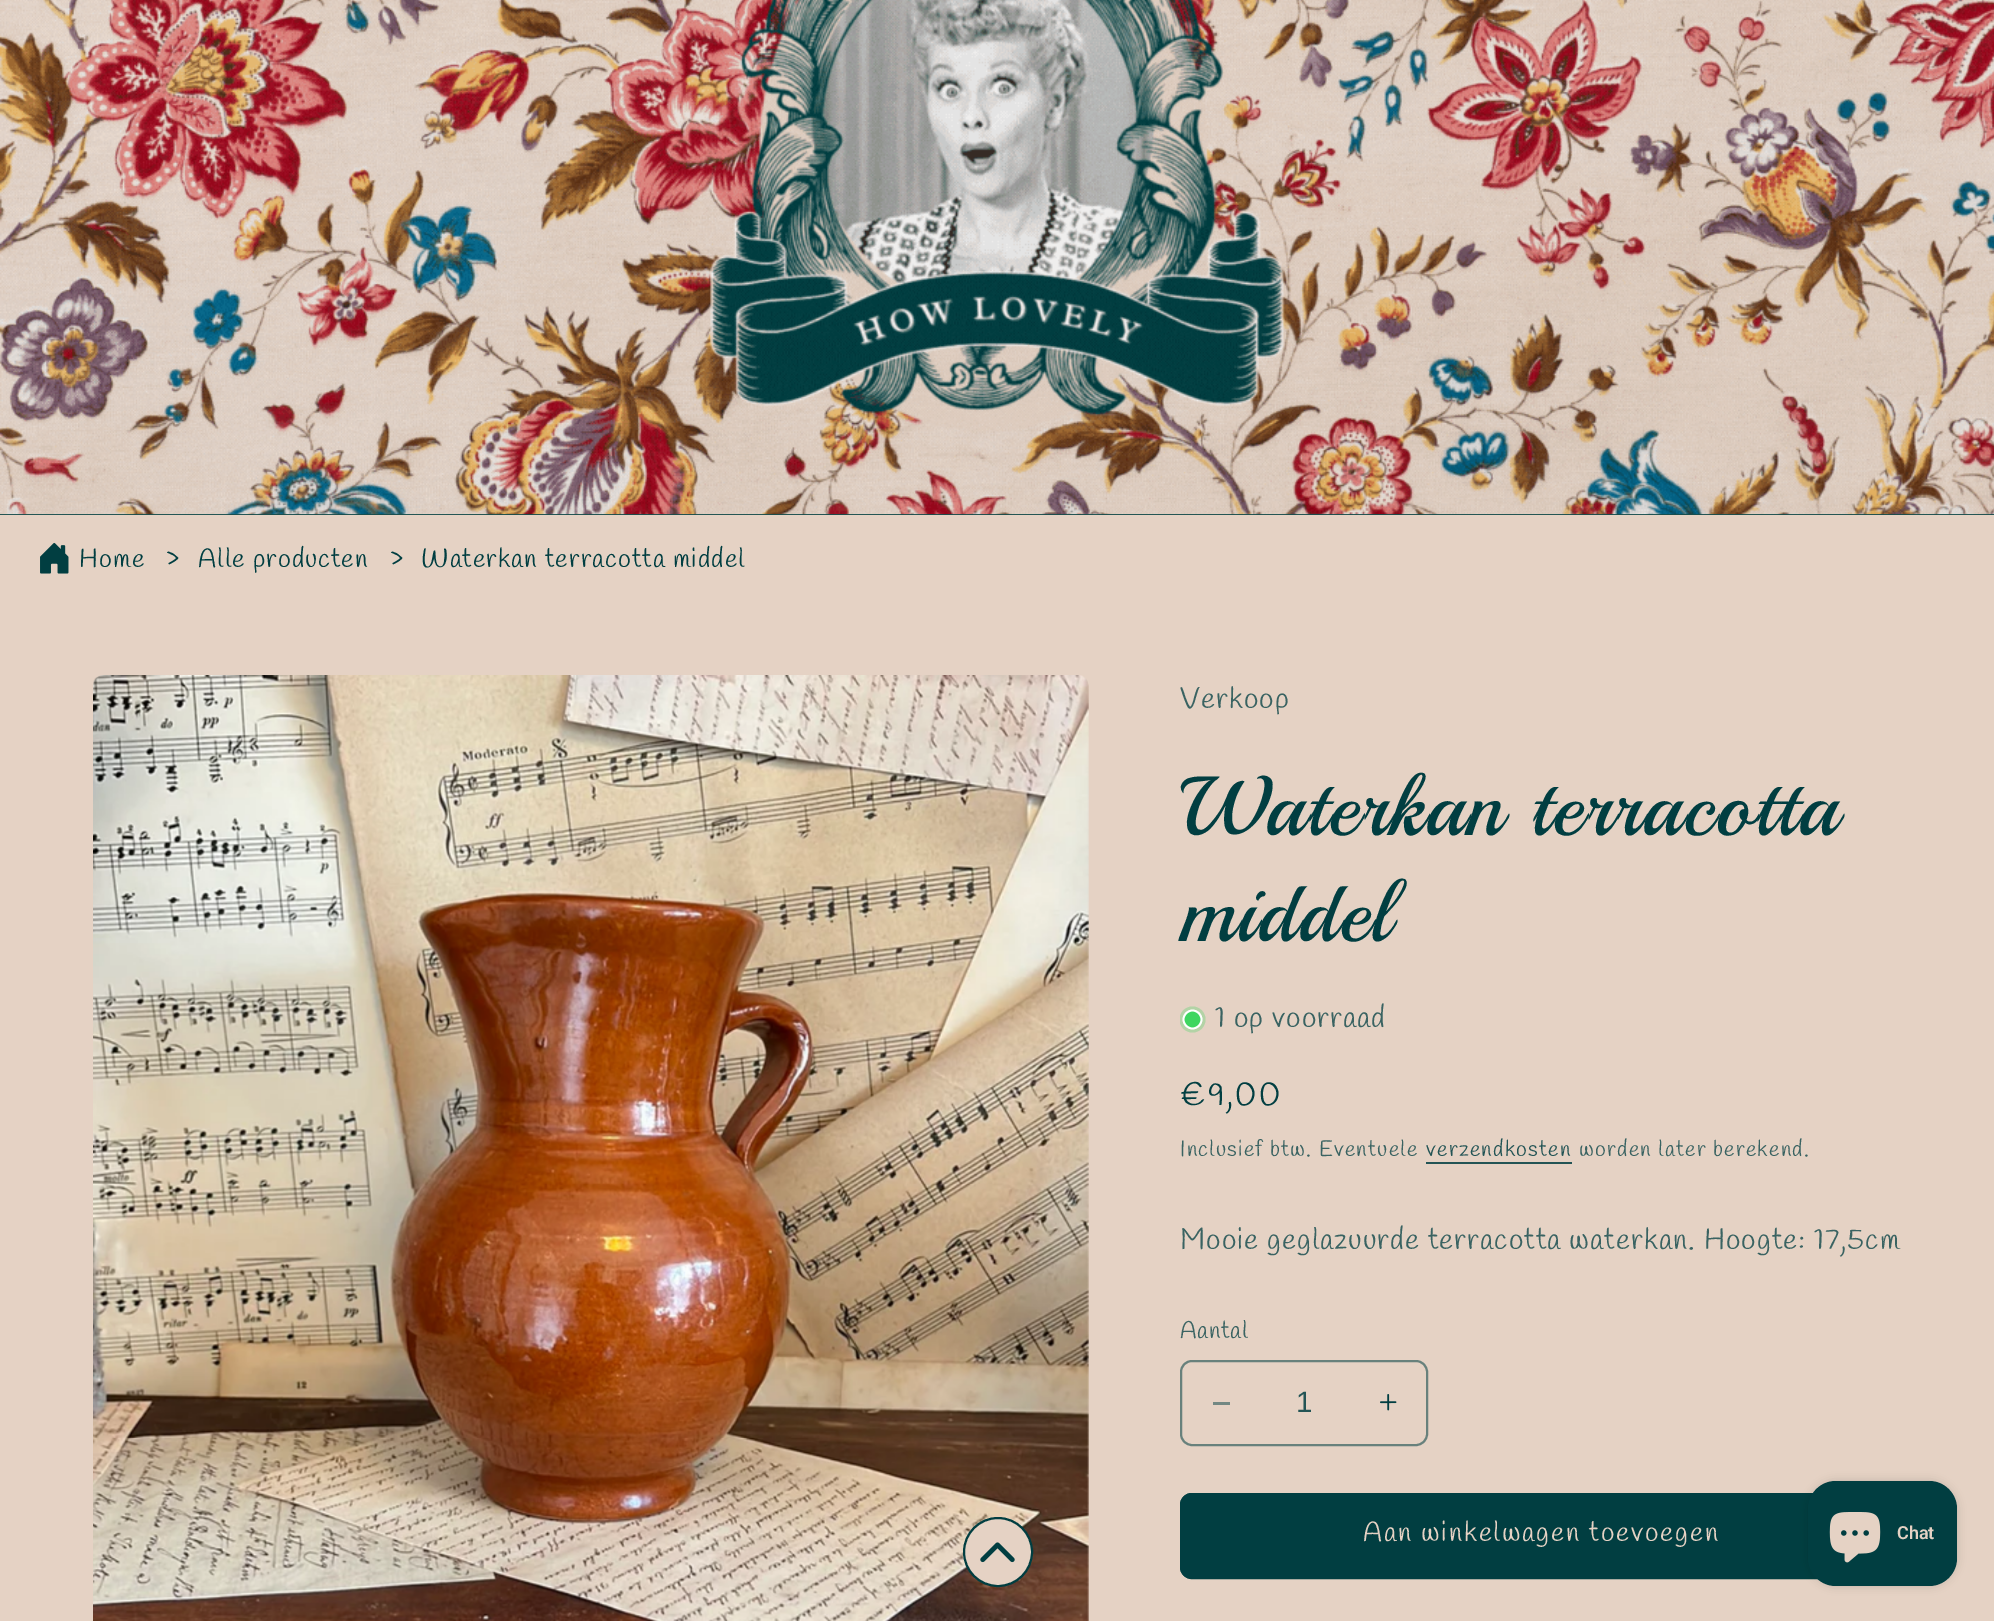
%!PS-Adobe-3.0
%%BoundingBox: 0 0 1994 1621
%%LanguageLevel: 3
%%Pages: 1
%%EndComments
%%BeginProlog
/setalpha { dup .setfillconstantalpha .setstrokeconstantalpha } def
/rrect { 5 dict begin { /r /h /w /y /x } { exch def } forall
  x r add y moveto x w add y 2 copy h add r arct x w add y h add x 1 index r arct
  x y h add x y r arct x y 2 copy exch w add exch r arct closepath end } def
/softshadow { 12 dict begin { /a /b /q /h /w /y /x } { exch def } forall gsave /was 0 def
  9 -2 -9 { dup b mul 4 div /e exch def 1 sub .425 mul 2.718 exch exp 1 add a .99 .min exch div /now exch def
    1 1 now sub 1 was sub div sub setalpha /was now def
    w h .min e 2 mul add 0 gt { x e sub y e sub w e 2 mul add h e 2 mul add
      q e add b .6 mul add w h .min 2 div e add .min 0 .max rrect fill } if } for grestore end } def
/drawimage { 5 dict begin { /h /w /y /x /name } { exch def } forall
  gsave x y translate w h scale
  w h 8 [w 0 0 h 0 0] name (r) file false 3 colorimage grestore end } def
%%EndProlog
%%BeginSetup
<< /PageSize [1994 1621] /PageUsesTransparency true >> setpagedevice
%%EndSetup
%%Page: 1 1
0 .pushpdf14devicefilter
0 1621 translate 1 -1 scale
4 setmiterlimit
0.898 0.824 0.769 setrgbcolor
0 0 1994 1621 rectfill
0.094 0.306 0.302 setrgbcolor
0 514 1994 1 rectfill
(images/1.raw) 0 0 1994 515 drawimage
(images/2.raw) 40 542 29 32 drawimage
(images/4.raw) 93 675 996 946 drawimage
0.898 0.824 0.769 setrgbcolor
newpath 998 1552 34 0 360 arc closepath gsave fill grestore
0.004 0.243 0.255 setrgbcolor
2 setlinewidth
stroke
(images/3.raw) 980 1542 35 21 drawimage
gsave
1180 1006 26 27 rectclip
0.702 0.827 0.651 setrgbcolor
newpath 1192.5 1019.5 13 0 360 arc closepath fill
grestore
0.243 0.839 0.376 setrgbcolor
newpath 1192.5 1019.5 9 0 360 arc closepath gsave fill grestore
1 setgray
1.8 setlinewidth
stroke
0.137 0.329 0.333 setrgbcolor
1426 1162 146 2 rectfill
0.451 0.533 0.514 setrgbcolor
1213 1402 17 3 rectfill
(images/5.raw) 1380 1394 17 17 drawimage
0.408 0.506 0.486 setrgbcolor
2 setlinewidth
1181 1361 246 84 11 rrect stroke
0.004 0.243 0.255 setrgbcolor
1180 1493 724 86 12 rrect fill
1181 1494 722 84 11 rrect stroke
0 setgray
1808 1481 149 105 28 4.5 0.15 softshadow
0.004 0.243 0.255 setrgbcolor
1808 1481 149 105 28 rrect fill
(images/6.raw) 1829 1512 52 51 drawimage
/Handlee-Regular [26.25 0 0 -26.25 0 0] selectfont
79 567 moveto 1.1 0 (Home) ashow
/Handlee-Regular [32 0 0 -32 0 0] selectfont
166 567 moveto 1.1 0 (›) ashow
/Handlee-Regular [26.25 0 0 -26.25 0 0] selectfont
198 567 moveto 1.1 0 (Alle producten) ashow
/Handlee-Regular [32 0 0 -32 0 0] selectfont
390 567 moveto 1.1 0 (›) ashow
/Handlee-Regular [26.25 0 0 -26.25 0 0] selectfont
421 567 moveto 1.1 0 (Waterkan terracotta middel) ashow
/Handlee-Regular [29.4 0 0 -29.4 0 0] selectfont
0.227 0.388 0.384 setrgbcolor
1180 708 moveto 1.1 0 (Verkoop) ashow
/Playball-Regular [84 0 0 -84 0 0] selectfont
0.004 0.243 0.255 setrgbcolor
1180 835 moveto 1.25 0 (Waterkan terracotta) ashow
1180 941 moveto 1.25 0 (middel) ashow
/Handlee-Regular [29.4 0 0 -29.4 0 0] selectfont
0.227 0.388 0.384 setrgbcolor
1215 1027 moveto 1.1 0 (1 op voorraad) ashow
/Handlee-Regular [33 0 0 -33 0 0] selectfont
0.004 0.243 0.255 setrgbcolor
1180 1105 moveto 2.5 0 (€9,00) ashow
/Handlee-Regular [22 0 0 -22 0 0] selectfont
0.227 0.388 0.384 setrgbcolor
1180 1156 moveto 1.25 0 (Inclusief btw. Eventuele) ashow
0.137 0.329 0.333 setrgbcolor
1426 1156 moveto 1.25 0 (verzendkosten) ashow
0.227 0.388 0.384 setrgbcolor
1579 1156 moveto 1.25 0 (worden later berekend.) ashow
/Handlee-Regular [29.4 0 0 -29.4 0 0] selectfont
1180 1249 moveto 1.1 0 (Mooie geglazuurde terracotta waterkan. Hoogte: 17,5cm) ashow
/Handlee-Regular [24 0 0 -24 0 0] selectfont
1180 1338 moveto 0.75 0 (Aantal) ashow
/LiberationSans-Regular [29.4 0 0 -29.4 0 0] selectfont
0.137 0.329 0.333 setrgbcolor
1296 1412 moveto (1) show
/Handlee-Regular [27.5 0 0 -27.5 0 0] selectfont
0.898 0.824 0.769 setrgbcolor
1363 1541 moveto 1.85 0 (Aan winkelwagen toevoegen) ashow
/Roboto-SemiBold [18 0 0 -18 0 0] selectfont
1897 1539 moveto (Chat) show
.poppdf14devicefilter showpage
%%EOF
